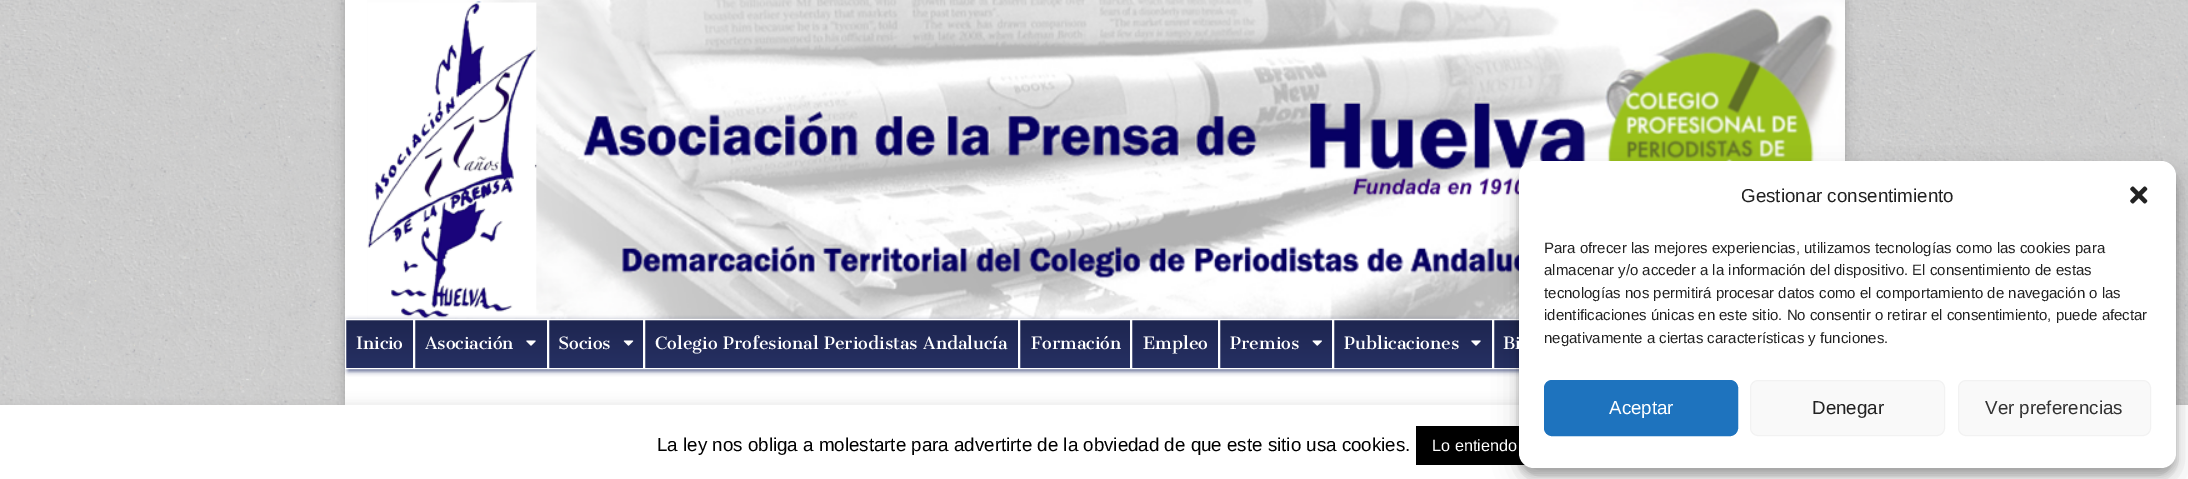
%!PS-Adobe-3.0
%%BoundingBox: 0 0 2188 479
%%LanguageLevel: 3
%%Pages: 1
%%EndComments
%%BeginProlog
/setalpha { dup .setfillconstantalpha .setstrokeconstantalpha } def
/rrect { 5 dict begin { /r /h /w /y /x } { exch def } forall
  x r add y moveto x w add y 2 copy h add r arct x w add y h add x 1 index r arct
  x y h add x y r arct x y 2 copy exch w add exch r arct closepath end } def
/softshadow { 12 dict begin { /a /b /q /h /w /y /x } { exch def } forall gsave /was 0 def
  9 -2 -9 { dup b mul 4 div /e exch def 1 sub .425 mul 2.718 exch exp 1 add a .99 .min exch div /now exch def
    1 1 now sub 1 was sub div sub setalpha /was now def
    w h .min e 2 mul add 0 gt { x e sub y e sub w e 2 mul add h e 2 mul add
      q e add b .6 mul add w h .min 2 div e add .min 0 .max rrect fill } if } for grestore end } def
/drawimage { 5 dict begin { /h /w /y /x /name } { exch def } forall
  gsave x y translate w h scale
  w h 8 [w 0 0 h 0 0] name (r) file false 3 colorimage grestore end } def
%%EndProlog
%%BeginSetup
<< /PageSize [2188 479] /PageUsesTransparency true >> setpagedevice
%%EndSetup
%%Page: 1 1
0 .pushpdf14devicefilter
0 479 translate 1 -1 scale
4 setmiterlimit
1 setgray
0 0 2188 479 rectfill
(images/1.raw) 0 0 2188 405 drawimage
0 setgray
345 0 1500 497 0 6 0.2 softshadow
1 setgray
345 0 1174 405 rectfill
(images/2.raw) 367 0 1478 319 drawimage
0.122 0.165 0.392 setrgbcolor
348 321 1441 50 0 2.5 0.8 softshadow
gsave newpath 346 320 moveto 1519 320 lineto 1519 368 lineto 346 368 lineto closepath clip newpath
<< /ShadingType 2 /ColorSpace /DeviceRGB /Coords [1066 319 1066 369] /Extend [true true] /Function << /FunctionType 2 /Domain [0 1] /C0 [0.118 0.149 0.314] /C1 [0.149 0.188 0.388] /N 1 >> >> shfill grestore
1 setgray
345.5 319.5 68 49 rectstroke
414.5 319.5 133 49 rectstroke
(images/3.raw) 526 340 10 6 drawimage
548.5 319.5 95 49 rectstroke
(images/4.raw) 623 340 11 6 drawimage
644.5 319.5 374 49 rectstroke
1019.5 319.5 111 49 rectstroke
1131.5 319.5 87 49 rectstroke
1219.5 319.5 113 49 rectstroke
(images/5.raw) 1312 340 10 6 drawimage
1333.5 319.5 159 49 rectstroke
(images/3.raw) 1471 340 10 6 drawimage
1493.5 319.5 195 49 rectstroke
0.675 0.671 0.671 setrgbcolor
0 404 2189 75 0 6 0.3 softshadow
1 setgray
0 405 2188 74 rectfill
0 setgray
1416 426 109 39 rectfill
1519 169 657 306 15 4 0.23 softshadow
1519 174 657 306 15 12.5 0.19 softshadow
1 setgray
1519 161 657 307 15 rrect fill
(images/6.raw) 2130 186 18 18 drawimage
0.118 0.451 0.745 setrgbcolor
1544.5 380.5 193 55 7.5 rrect gsave fill grestore
stroke
0.976 setgray
1750.5 380.5 194 55 7.5 rrect gsave fill grestore
0.949 setgray
stroke
0.976 setgray
1958.5 380.5 192 55 7.5 rrect gsave fill grestore
0.949 setgray
stroke
/CantataOne-Regular [16.6 0 0 -16.6 0 0] selectfont
1 setgray
356 349 moveto (Inicio) show
425 349 moveto (Asociación) show
558 349 moveto (Socios) show
655 349 moveto (Colegio Profesional Periodistas Andalucía) show
1031 349 moveto (Formación) show
1143 349 moveto (Empleo) show
1230 349 moveto (Premios) show
1344 349 moveto (Publicaciones) show
1503 349 moveto (Bi) show
/LiberationSans-Regular [18.75 0 0 -18.75 0 0] selectfont
0.133 setgray
1741 202 moveto (Gestionar consentimiento) show
/LiberationSans-Regular [15 0 0 -15 0 0] selectfont
1544 253 moveto (Para ofrecer las mejores experiencias, utilizamos tecnologías como las cookies para) show
1544 275 moveto (almacenar y/o acceder a la información del dispositivo. El consentimiento de estas) show
1544 298 moveto (tecnologías nos permitirá procesar datos como el comportamiento de navegación o las) show
1544 320 moveto (identificaciones únicas en este sitio. No consentir o retirar el consentimiento, puede afectar) show
1544 343 moveto (negativamente a ciertas características y funciones.) show
/LiberationSans-Regular [18.75 0 0 -18.75 0 0] selectfont
1 setgray
1609 414 moveto (Aceptar) show
0.133 setgray
1812 414 moveto (Denegar) show
0.2 setgray
1985 414 moveto (Ver preferencias) show
0 setgray
657 451 moveto (La ley nos obliga a molestarte para advertirte de la obviedad de que este sitio usa cookies.) show
/LiberationSans-Regular [16.25 0 0 -16.25 0 0] selectfont
1 setgray
1432 451 moveto (Lo entiendo) show
.poppdf14devicefilter showpage
%%EOF
